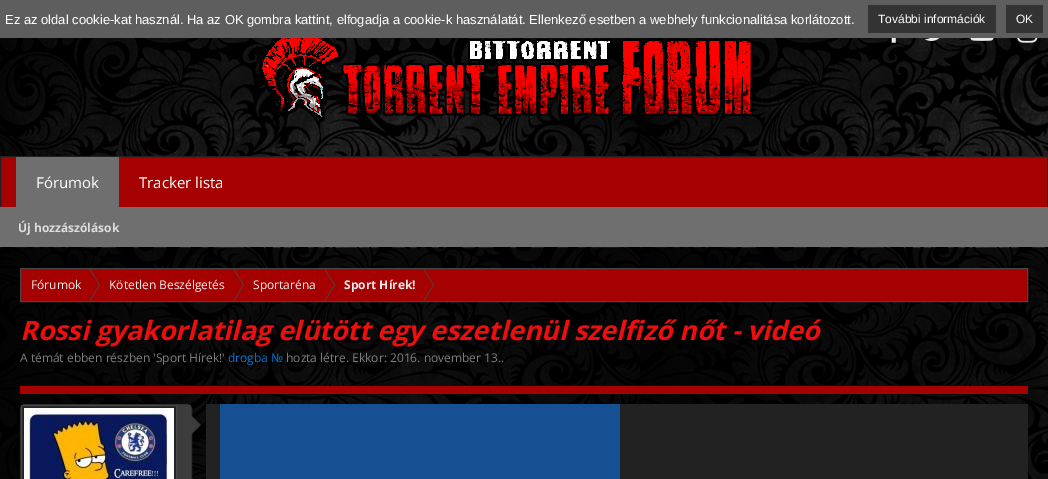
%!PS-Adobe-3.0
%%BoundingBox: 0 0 1048 479
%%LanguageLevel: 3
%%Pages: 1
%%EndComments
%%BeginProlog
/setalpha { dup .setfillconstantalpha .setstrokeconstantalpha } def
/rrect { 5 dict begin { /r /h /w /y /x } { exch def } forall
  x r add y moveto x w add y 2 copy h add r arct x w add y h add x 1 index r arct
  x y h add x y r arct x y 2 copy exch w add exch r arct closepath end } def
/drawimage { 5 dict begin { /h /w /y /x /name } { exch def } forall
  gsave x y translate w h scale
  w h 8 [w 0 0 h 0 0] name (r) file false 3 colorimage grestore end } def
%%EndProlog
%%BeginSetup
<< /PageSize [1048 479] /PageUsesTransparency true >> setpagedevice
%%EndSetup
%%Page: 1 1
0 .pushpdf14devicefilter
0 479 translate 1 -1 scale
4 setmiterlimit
1 setgray
0 0 1048 479 rectfill
(images/1.raw) 0 38 1048 441 drawimage
0.369 setgray
0 0 1048 38 rectfill
0.2 setgray
868 5 128 28 rectfill
1006 5 37 28 rectfill
(images/2.raw) 259 38 494 88 drawimage
(images/3.raw) 891 38 5 5 drawimage
(images/4.raw) 924 38 16 3 drawimage
(images/5.raw) 970 38 24 3 drawimage
(images/6.raw) 1017 38 21 5 drawimage
0.651 0.004 0.004 setrgbcolor
newpath 0.5 156.5 moveto 1047.5 156.5 lineto 1047.5 207.5 lineto 0.5 207.5 lineto closepath gsave fill grestore
0.133 setgray
stroke
0.435 setgray
16 157 103 50 rectfill
0 207 1048 40 rectfill
0.7 setalpha
0 setgray
0 248 1048 231 rectfill
1 setalpha
0.651 0.004 0.004 setrgbcolor
newpath 20.5 268.5 moveto 1027.5 268.5 lineto 1027.5 301.5 lineto 20.5 301.5 lineto closepath gsave fill grestore
0.275 setgray
stroke
newpath 90 301 moveto 90 269 lineto 100 285 lineto closepath fill
0.651 0.004 0.004 setrgbcolor
newpath 89 301 moveto 89 269 lineto 99 285 lineto closepath fill
0.275 setgray
newpath 234 301 moveto 234 269 lineto 244 285 lineto closepath fill
0.651 0.004 0.004 setrgbcolor
newpath 233 301 moveto 233 269 lineto 243 285 lineto closepath fill
0.275 setgray
newpath 325 301 moveto 325 269 lineto 335 285 lineto closepath fill
0.651 0.004 0.004 setrgbcolor
newpath 324 301 moveto 324 269 lineto 334 285 lineto closepath fill
0.275 setgray
newpath 424 301 moveto 424 269 lineto 434 285 lineto closepath fill
0.651 0.004 0.004 setrgbcolor
newpath 423 301 moveto 423 269 lineto 433 285 lineto closepath fill
20 386 1008 8 rectfill
0.188 setgray
20.5 404.5 171 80 4.5 rrect stroke
0.235 setgray
177 405 14 74 rectfill
0.133 setgray
newpath 21.5 405.5 moveto 176.5 405.5 lineto 176.5 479.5 lineto 21.5 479.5 lineto closepath gsave fill grestore
0.275 setgray
stroke
(images/7.raw) 24 408 150 71 drawimage
0.188 setgray
newpath 191 435 moveto 191 415 lineto 201 425 lineto closepath fill
0.235 setgray
newpath 190 435 moveto 190 415 lineto 200 425 lineto closepath fill
0.133 setgray
206 404 822 75 rectfill
0.082 0.314 0.573 setrgbcolor
220 404 400 75 rectfill
/LiberationSans-Regular [13 0 0 -13 0 0] selectfont
1 setgray
5 24 moveto (Ez az oldal cookie-kat használ. Ha az OK gombra kattint, elfogadja a cookie-k használatát. Ellenkező esetben a webhely funkcionalitása korlátozott.) show
/LiberationSans-Regular [12 0 0 -12 0 0] selectfont
878 23 moveto (További információk) show
1016 23 moveto (OK) show
/OpenSans-Regular [15 0 0 -15 0 0] selectfont
36 188 moveto (Fórumok) show
/OpenSans-Bold [12 0 0 -12 0 0] selectfont
0.871 setgray
18 232 moveto (Új hozzászólások) show
/OpenSans-Regular [15 0 0 -15 0 0] selectfont
1 setgray
139 188 moveto (Tracker lista) show
/OpenSans-Regular [12 0 0 -12 0 0] selectfont
0.922 setgray
31 289 moveto (Fórumok) show
109 289 moveto (Kötetlen Beszélgetés) show
253 289 moveto (Sportaréna) show
/OpenSans-Bold [12 0 0 -12 0 0] selectfont
344 289 moveto (Sport Hírek!) show
/OpenSans-BoldItalic [26.7 0 0 -26.7 0 0] selectfont
0.933 0.055 0.055 setrgbcolor
20 340 moveto (Rossi gyakorlatilag elütött egy eszetlenül szelfiző nőt - videó) show
/OpenSans-Regular [12 0 0 -12 0 0] selectfont
0.494 setgray
20 362 moveto (A témát ebben részben 'Sport Hírek!') show
0 0.455 0.851 setrgbcolor
228 362 moveto (drogba №) show
0.494 setgray
286 362 moveto (hozta létre. Ekkor: 2016. november 13..) show
.poppdf14devicefilter showpage
%%EOF
